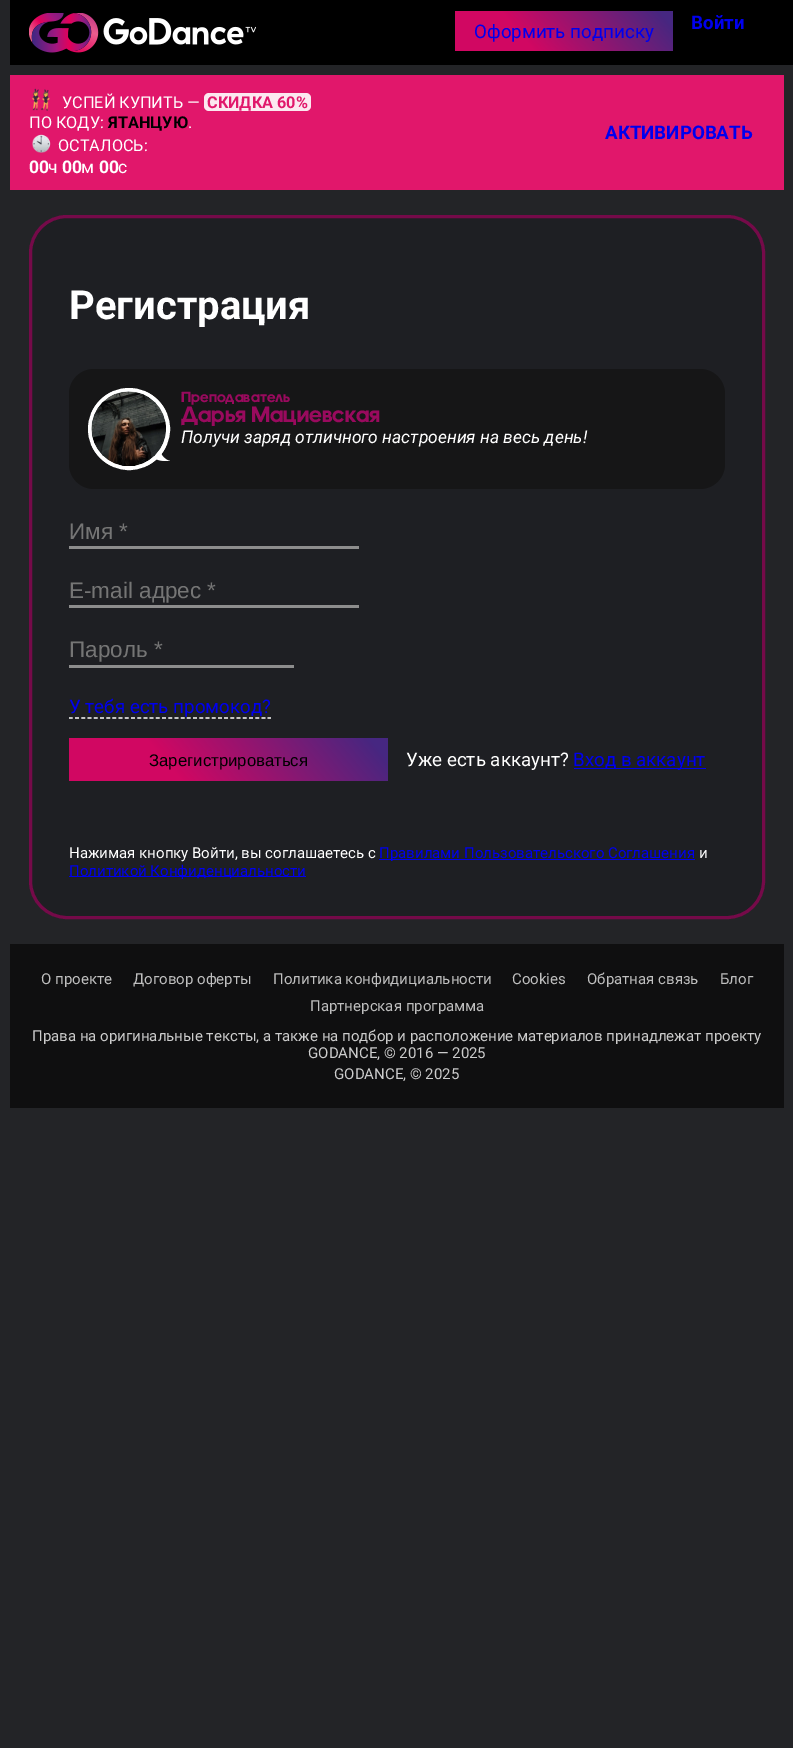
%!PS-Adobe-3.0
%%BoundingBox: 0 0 793 1748
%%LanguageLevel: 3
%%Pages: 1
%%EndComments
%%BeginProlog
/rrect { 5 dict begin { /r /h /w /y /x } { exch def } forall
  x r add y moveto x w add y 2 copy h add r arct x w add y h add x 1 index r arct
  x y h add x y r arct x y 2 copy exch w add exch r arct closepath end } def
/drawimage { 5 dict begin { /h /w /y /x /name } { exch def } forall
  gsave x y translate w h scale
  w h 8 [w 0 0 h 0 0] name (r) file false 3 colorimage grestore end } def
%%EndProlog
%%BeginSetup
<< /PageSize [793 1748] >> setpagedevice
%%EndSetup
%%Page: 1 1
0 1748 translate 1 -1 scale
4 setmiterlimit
0.137 0.141 0.153 setrgbcolor
0 0 793 1748 rectfill
0 setgray
10 0 783 65 rectfill
(images/1.raw) 29 13 227 40 drawimage
gsave newpath 455 11 moveto 673 11 lineto 673 51 lineto 455 51 lineto closepath clip newpath
<< /ShadingType 2 /ColorSpace /DeviceRGB /Coords [490 93 637 -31] /Extend [true true] /Function << /FunctionType 3 /Domain [0 1] /Functions [<< /FunctionType 2 /Domain [0 1] /C0 [0.82 0.027 0.384] /C1 [0.82 0.027 0.384] /N 1 >> << /FunctionType 2 /Domain [0 1] /C0 [0.82 0.027 0.384] /C1 [0.275 0.153 0.506] /N 1 >> << /FunctionType 2 /Domain [0 1] /C0 [0.275 0.153 0.506] /C1 [0.275 0.153 0.506] /N 1 >>] /Bounds [0.32 0.95] /Encode [0 1 0 1 0 1] >> >> shfill grestore
0.882 0.09 0.42 setrgbcolor
10 75 774 115 rectfill
(images/2.raw) 32 88 18 23 drawimage
0.988 0.91 0.941 setrgbcolor
204 93 107 18 5 rrect fill
(images/3.raw) 32 134 19 19 drawimage
0.118 0.122 0.137 setrgbcolor
30.5 216.5 733 701 36.5 rrect gsave fill grestore
0.459 0.039 0.286 setrgbcolor
3 setlinewidth
stroke
0.086 0.086 0.09 setrgbcolor
69 369 656 120 25 rrect fill
1 setgray
newpath 145 436 moveto 170 436 lineto 170 461 lineto 164 461 lineto 153.5 461 145 452.5 145 442 curveto closepath fill
0.086 0.086 0.09 setrgbcolor
newpath 160 436 moveto 173 436 lineto 173 461 lineto 166 461 160 455 160 448 curveto closepath fill
1 setgray
newpath 129 429 39 0 360 arc closepath gsave fill grestore
4 setlinewidth
stroke
(images/4.raw) 91 391 75 75 drawimage
0.553 setgray
69 546 290 3 rectfill
69 605 290 3 rectfill
69 665 225 3 rectfill
1 setgray
1.2 setlinewidth
[3.75 2.46] 0 setdash
newpath 69 718 moveto 271 718 lineto stroke
gsave newpath 69 738 moveto 388 738 lineto 388 781 lineto 69 781 lineto closepath clip newpath
<< /ShadingType 2 /ColorSpace /DeviceRGB /Coords [124 847 332 672] /Extend [true true] /Function << /FunctionType 3 /Domain [0 1] /Functions [<< /FunctionType 2 /Domain [0 1] /C0 [0.82 0.027 0.384] /C1 [0.82 0.027 0.384] /N 1 >> << /FunctionType 2 /Domain [0 1] /C0 [0.82 0.027 0.384] /C1 [0.275 0.153 0.506] /N 1 >> << /FunctionType 2 /Domain [0 1] /C0 [0.275 0.153 0.506] /C1 [0.275 0.153 0.506] /N 1 >>] /Bounds [0.32 0.95] /Encode [0 1 0 1 0 1] >> >> shfill grestore
0 0 0.933 setrgbcolor
574 768 132 1 rectfill
379 859 316 1 rectfill
69 876 237 1 rectfill
0.059 0.059 0.063 setrgbcolor
10 944 774 164 rectfill
/Roboto-Regular [18.75 0 0 -18.75 0 0] selectfont
0 0 0.933 setrgbcolor
474 38 moveto (Оформить подписку) show
/Roboto-Bold [18.75 0 0 -18.75 0 0] selectfont
691 29 moveto (Войти) show
/Roboto-Regular [16.25 0 0 -16.25 0 0] selectfont
1 setgray
62 108 moveto (УСПЕЙ КУПИТЬ —) show
/Roboto-Bold [16.25 0 0 -16.25 0 0] selectfont
0.882 0.09 0.42 setrgbcolor
207 108 moveto (СКИДКА 60%) show
/Roboto-Regular [16.25 0 0 -16.25 0 0] selectfont
1 setgray
29 128 moveto (ПО КОДУ:) show
/Roboto-Bold [16.25 0 0 -16.25 0 0] selectfont
0 setgray
108 128 moveto (ЯТАНЦУЮ) show
/Roboto-Regular [16.25 0 0 -16.25 0 0] selectfont
1 setgray
188 128 moveto (.) show
58 151 moveto (ОСТАЛОСЬ:) show
/Roboto-Bold [17.5 0 0 -17.5 0 0] selectfont
29 173 moveto (00) show
/Roboto-Regular [17.5 0 0 -17.5 0 0] selectfont
48 173 moveto (ч) show
/Roboto-Bold [17.5 0 0 -17.5 0 0] selectfont
62 173 moveto (00) show
/Roboto-Regular [17.5 0 0 -17.5 0 0] selectfont
81 173 moveto (м) show
/Roboto-Bold [17.5 0 0 -17.5 0 0] selectfont
99 173 moveto (00) show
/Roboto-Regular [17.5 0 0 -17.5 0 0] selectfont
118 173 moveto (с) show
/Roboto-Bold [18.75 0 0 -18.75 0 0] selectfont
0 0 0.933 setrgbcolor
605 139 moveto (АКТИВИРОВАТЬ) show
/Roboto-Bold [40 0 0 -40 0 0] selectfont
1 setgray
69 319 moveto (Регистрация) show
/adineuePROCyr-Bold [15 0 0 -15 0 0] selectfont
0.6 0.039 0.369 setrgbcolor
181 402 moveto (Преподаватель) show
/adineuePROCyr-Bold [22.5 0 0 -22.5 0 0] selectfont
181 422 moveto (Дарья Мациевская) show
/Roboto-Italic [17.5 0 0 -17.5 0 0] selectfont
1 setgray
181 443 moveto (Получи заряд отличного настроения на весь день!) show
/LiberationSans-Regular [22.5 0 0 -22.5 0 0] selectfont
0.459 setgray
69 539 moveto (Имя *) show
69 598 moveto (E-mail адрес *) show
69 657 moveto (Пароль *) show
/Roboto-Regular [18.75 0 0 -18.75 0 0] selectfont
0 0 0.933 setrgbcolor
69 713 moveto (У тебя есть промокод?) show
/LiberationSans-Regular [16.75 0 0 -16.75 0 0] selectfont
0 setgray
149 766 moveto (Зарегистрироваться) show
/Roboto-Regular [18.75 0 0 -18.75 0 0] selectfont
1 setgray
406 766 moveto (Уже есть аккаунт?) show
0 0 0.933 setrgbcolor
573 766 moveto (Вход в аккаунт) show
/Roboto-Regular [15 0 0 -15 0 0] selectfont
1 setgray
69 858 moveto (Нажимая кнопку Войти, вы соглашаетесь с) show
0 0 0.933 setrgbcolor
379 858 moveto (Правилами Пользовательского Соглашения) show
1 setgray
699 858 moveto (и) show
0 0 0.933 setrgbcolor
69 876 moveto (Политикой Конфиденциальности) show
0.749 setgray
41 984 moveto (О проекте) show
133 984 moveto (Договор оферты) show
273 984 moveto (Политика конфидициальности) show
512 984 moveto (Cookies) show
587 984 moveto (Обратная связь) show
720 984 moveto (Блог) show
310 1011 moveto (Партнерская программа) show
0.8 setgray
32 1041 moveto (Права на оригинальные тексты, а также на подбор и расположение материалов принадлежат проекту) show
308 1058 moveto (GODANCE, © 2016 — 2025) show
334 1079 moveto (GODANCE, © 2025) show
showpage
%%EOF
